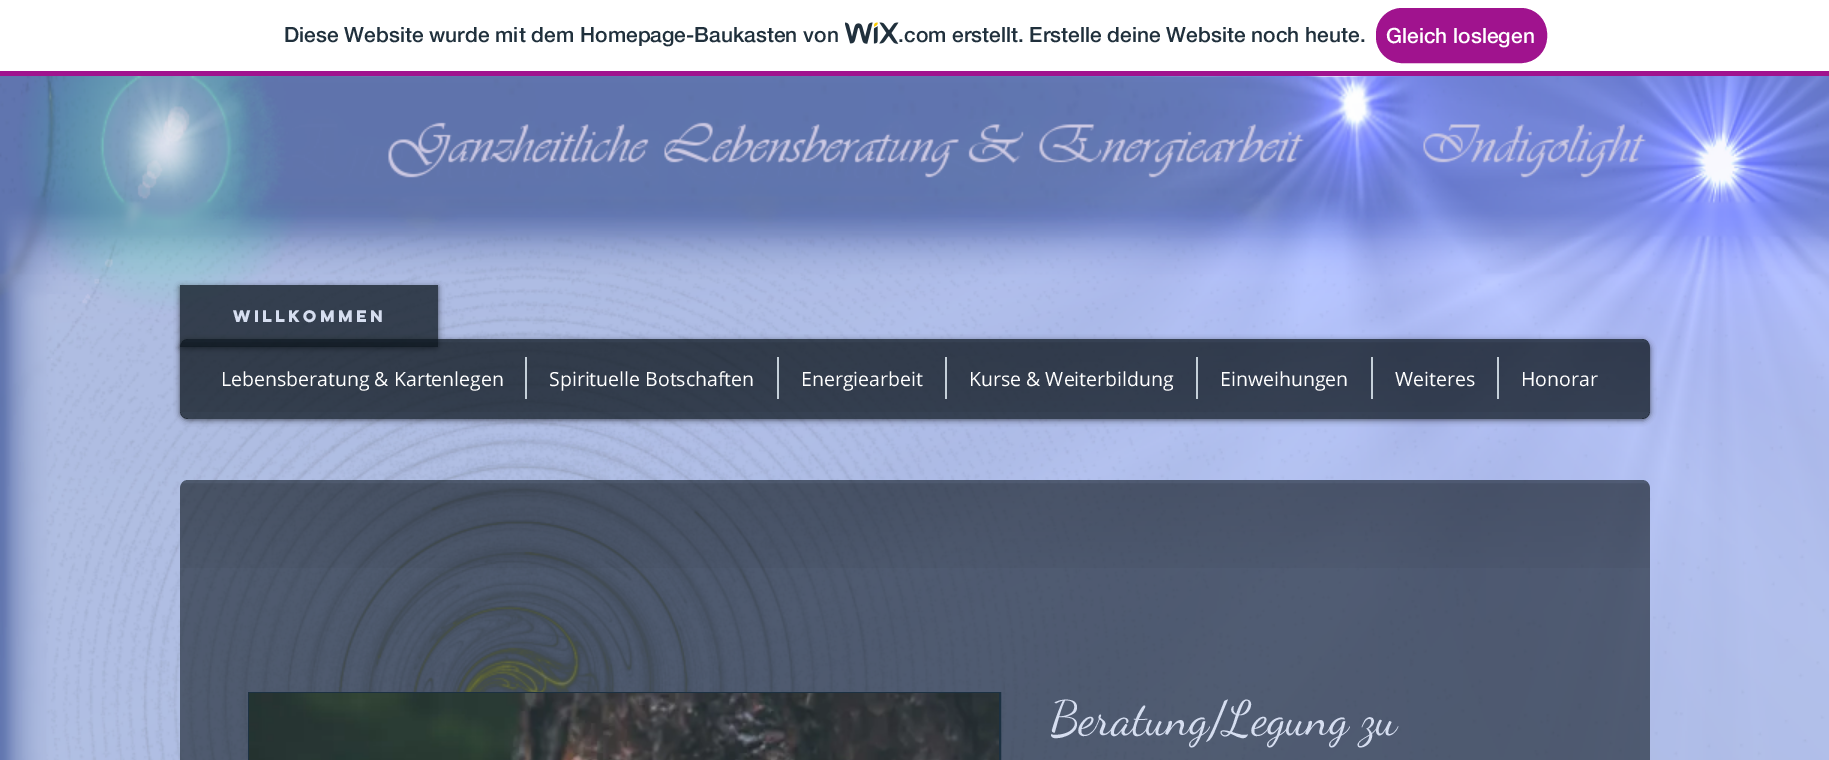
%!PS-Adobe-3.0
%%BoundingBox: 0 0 1829 760
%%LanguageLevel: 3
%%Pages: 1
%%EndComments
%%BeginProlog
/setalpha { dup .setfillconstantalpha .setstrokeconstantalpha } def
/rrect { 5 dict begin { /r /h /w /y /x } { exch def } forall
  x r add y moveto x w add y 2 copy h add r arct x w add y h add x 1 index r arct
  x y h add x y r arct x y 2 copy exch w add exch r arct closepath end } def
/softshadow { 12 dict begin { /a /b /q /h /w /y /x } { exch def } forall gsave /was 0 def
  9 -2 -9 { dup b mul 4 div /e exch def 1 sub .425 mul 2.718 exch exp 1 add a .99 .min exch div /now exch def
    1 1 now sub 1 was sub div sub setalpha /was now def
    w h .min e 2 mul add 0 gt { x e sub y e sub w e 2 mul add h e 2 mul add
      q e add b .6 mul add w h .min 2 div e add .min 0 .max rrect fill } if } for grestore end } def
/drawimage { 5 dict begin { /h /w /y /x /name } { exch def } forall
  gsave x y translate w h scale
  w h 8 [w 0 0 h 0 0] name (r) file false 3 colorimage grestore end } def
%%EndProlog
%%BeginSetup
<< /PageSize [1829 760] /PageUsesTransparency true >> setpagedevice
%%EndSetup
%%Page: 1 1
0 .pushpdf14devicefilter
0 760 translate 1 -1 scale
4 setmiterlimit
1 setgray
0 0 1829 760 rectfill
0.627 0.075 0.557 setrgbcolor
0 71 1829 5 rectfill
(images/1.raw) 845 22 54 22 drawimage
1377 9 169 53 25 rrect gsave fill grestore
2 setlinewidth
stroke
(images/2.raw) 0 76 1829 684 drawimage
gsave
newpath 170 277 moveto 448 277 lineto 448 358 lineto 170 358 lineto closepath 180 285 moveto 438 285 lineto 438 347 lineto 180 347 lineto closepath eoclip newpath
0 setgray
180 287 258 61 0 3 0.6 softshadow
grestore
0.76 setalpha
0.055 0.094 0.129 setrgbcolor
180 285 258 62 rectfill
gsave
newpath 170 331 moveto 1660 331 lineto 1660 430 lineto 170 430 lineto closepath 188 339 moveto 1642 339 lineto 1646.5 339 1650 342.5 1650 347 curveto 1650 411 lineto 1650 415.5 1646.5 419 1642 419 curveto 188 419 lineto 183.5 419 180 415.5 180 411 curveto 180 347 lineto 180 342.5 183.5 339 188 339 curveto closepath eoclip newpath
1 setalpha
0 setgray
180 341 1470 79 8 3 0.6 softshadow
grestore
0.75 setalpha
180 339 1470 80 8 rrect fill
1 setalpha
(images/3.raw) 180 342 1470 70 drawimage
0.773 0.816 0.851 setrgbcolor
525 357 2 42 rectfill
777 357 2 42 rectfill
945 357 2 42 rectfill
1196 357 2 42 rectfill
1371 357 2 42 rectfill
1497 357 2 42 rectfill
0.6 setalpha
0.055 0.094 0.129 setrgbcolor
180 480 1470 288 8 rrect fill
1 setalpha
(images/4.raw) 180 483 1470 85 drawimage
0.11 0.192 0.259 setrgbcolor
249 693 751 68 rectstroke
(images/5.raw) 249 693 750 67 drawimage
/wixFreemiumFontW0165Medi-Medium [21 0 0 -21 0 0] selectfont
0.125 0.188 0.235 setrgbcolor
284 42 moveto (Diese Website wurde mit dem Homepage-Baukasten von) show
898 42 moveto (.com erstellt. Erstelle deine Website noch heute.) show
1 setgray
1386 43 moveto (Gleich loslegen) show
/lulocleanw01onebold-Bold [15 0 0 -15 0 0] selectfont
0.839 0.871 0.941 setrgbcolor
233 322 moveto (Willkommen) show
/OpenSans-Regular [19.5 0 0 -19.5 0 0] selectfont
1 setgray
221 386 moveto (Lebensberatung & Kartenlegen) show
549 386 moveto (Spirituelle Botschaften) show
801 386 moveto (Energiearbeit) show
969 386 moveto (Kurse & Weiterbildung) show
1220 386 moveto (Einweihungen) show
1395 386 moveto (Weiteres) show
1521 386 moveto (Honorar) show
/DancingScript-Regular [48 0 0 -48 0 0] selectfont
0.839 0.871 0.941 setrgbcolor
1050 734 moveto (Beratung/Legung zu) show
.poppdf14devicefilter showpage
%%EOF
